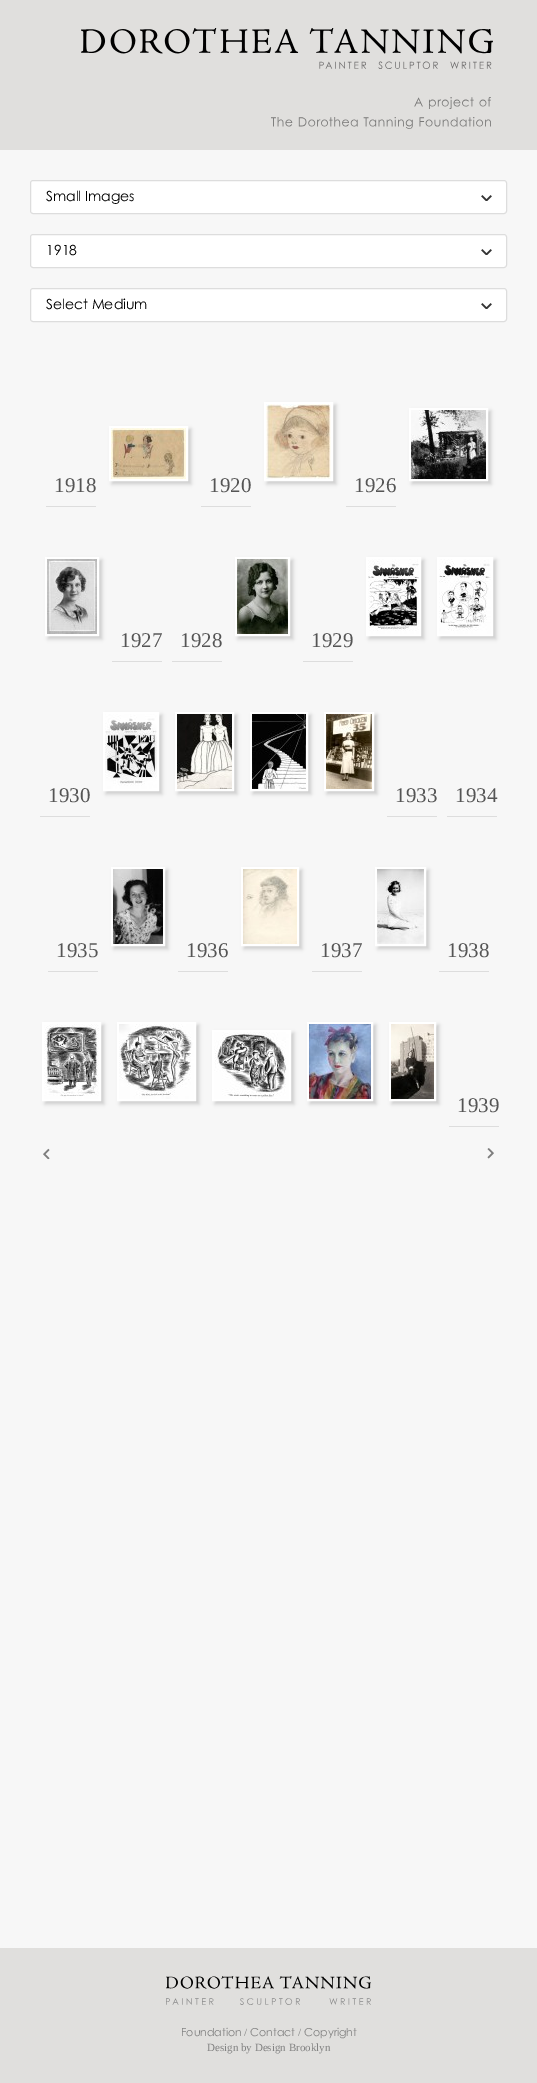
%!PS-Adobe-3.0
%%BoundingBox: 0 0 537 2083
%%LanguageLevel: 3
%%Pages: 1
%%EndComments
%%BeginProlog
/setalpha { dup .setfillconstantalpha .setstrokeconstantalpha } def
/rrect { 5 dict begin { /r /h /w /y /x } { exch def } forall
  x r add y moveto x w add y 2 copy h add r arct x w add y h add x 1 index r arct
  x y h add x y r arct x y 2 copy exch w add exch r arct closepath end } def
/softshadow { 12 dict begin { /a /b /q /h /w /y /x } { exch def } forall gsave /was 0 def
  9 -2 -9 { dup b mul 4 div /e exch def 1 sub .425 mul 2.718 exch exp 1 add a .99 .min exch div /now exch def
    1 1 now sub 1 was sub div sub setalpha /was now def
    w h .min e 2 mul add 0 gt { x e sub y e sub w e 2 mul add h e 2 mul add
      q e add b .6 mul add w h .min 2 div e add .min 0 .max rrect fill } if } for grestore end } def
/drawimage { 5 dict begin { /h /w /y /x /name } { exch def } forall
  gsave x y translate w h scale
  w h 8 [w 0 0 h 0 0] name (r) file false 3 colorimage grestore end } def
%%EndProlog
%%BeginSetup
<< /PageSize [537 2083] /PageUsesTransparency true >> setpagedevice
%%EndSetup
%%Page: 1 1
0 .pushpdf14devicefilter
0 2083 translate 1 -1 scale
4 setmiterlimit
0.969 setgray
0 0 537 2083 rectfill
0.878 0.875 0.867 setrgbcolor
0 0 537 150 rectfill
(images/1.raw) 81 28 412 41 drawimage
(images/2.raw) 271 97 220 32 drawimage
1 setgray
30 180 477 34 3 rrect fill
(images/3.raw) 481 195 11 6 drawimage
0.867 setgray
30.5 180.5 476 33 2.5 rrect stroke
1 setgray
30 234 477 34 3 rrect fill
(images/3.raw) 481 249 11 6 drawimage
0.867 setgray
30.5 234.5 476 33 2.5 rrect stroke
1 setgray
30 288 477 34 3 rrect fill
(images/3.raw) 481 303 11 6 drawimage
0.867 setgray
30.5 288.5 476 33 2.5 rrect stroke
46 506 50 1 rectfill
0.792 setgray
112 429 79 55 0 2 1 softshadow
1 setgray
2 setlinewidth
110 427 77 53 rectstroke
(images/4.raw) 111 428 75 51 drawimage
0.867 setgray
201 506 50 1 rectfill
0.792 setgray
267 405 69 79 0 2 1 softshadow
1 setgray
265 403 67 77 rectstroke
(images/5.raw) 266 404 65 75 drawimage
0.867 setgray
346 506 50 1 rectfill
0.792 setgray
412 411 79 73 0 2 1 softshadow
1 setgray
410 409 77 71 rectstroke
(images/6.raw) 411 410 75 69 drawimage
0.792 setgray
48 560 54 79 0 2 1 softshadow
1 setgray
46 558 52 77 rectstroke
(images/7.raw) 47 559 50 75 drawimage
0.867 setgray
112 661 50 1 rectfill
172 661 50 1 rectfill
0.792 setgray
238 560 55 79 0 2 1 softshadow
1 setgray
236 558 53 77 rectstroke
(images/8.raw) 237 559 51 75 drawimage
0.867 setgray
303 661 50 1 rectfill
0.792 setgray
369 560 55 79 0 2 1 softshadow
1 setgray
367 558 53 77 rectstroke
(images/9.raw) 368 559 51 75 drawimage
0.792 setgray
440 560 56 79 0 2 1 softshadow
1 setgray
438 558 54 77 rectstroke
(images/10.raw) 439 559 52 75 drawimage
0.867 setgray
40 816 50 1 rectfill
0.792 setgray
106 715 56 79 0 2 1 softshadow
1 setgray
104 713 54 77 rectstroke
(images/11.raw) 105 714 52 75 drawimage
0.792 setgray
178 715 59 79 0 2 1 softshadow
1 setgray
176 713 57 77 rectstroke
(images/12.raw) 177 714 55 75 drawimage
0.792 setgray
253 715 58 79 0 2 1 softshadow
1 setgray
251 713 56 77 rectstroke
(images/13.raw) 252 714 54 75 drawimage
0.792 setgray
327 715 50 79 0 2 1 softshadow
1 setgray
325 713 48 77 rectstroke
(images/14.raw) 326 714 46 75 drawimage
0.867 setgray
387 816 50 1 rectfill
447 816 50 1 rectfill
48 971 50 1 rectfill
0.792 setgray
114 870 54 79 0 2 1 softshadow
1 setgray
112 868 52 77 rectstroke
(images/15.raw) 113 869 50 75 drawimage
0.867 setgray
178 971 50 1 rectfill
0.792 setgray
244 870 58 79 0 2 1 softshadow
1 setgray
242 868 56 77 rectstroke
(images/16.raw) 243 869 54 75 drawimage
0.867 setgray
312 971 50 1 rectfill
0.792 setgray
378 870 51 79 0 2 1 softshadow
1 setgray
376 868 49 77 rectstroke
(images/17.raw) 377 869 47 75 drawimage
0.867 setgray
439 971 50 1 rectfill
0.792 setgray
45 1025 59 79 0 2 1 softshadow
1 setgray
43 1023 57 77 rectstroke
(images/18.raw) 44 1024 55 75 drawimage
0.792 setgray
120 1025 79 79 0 2 1 softshadow
1 setgray
118 1023 77 77 rectstroke
(images/19.raw) 119 1024 75 75 drawimage
0.792 setgray
215 1033 79 71 0 2 1 softshadow
1 setgray
213 1031 77 69 rectstroke
(images/20.raw) 214 1032 75 67 drawimage
0.792 setgray
310 1025 66 79 0 2 1 softshadow
1 setgray
308 1023 64 77 rectstroke
(images/21.raw) 309 1024 62 75 drawimage
0.792 setgray
392 1025 47 79 0 2 1 softshadow
1 setgray
390 1023 45 77 rectstroke
(images/22.raw) 391 1024 43 75 drawimage
0.867 setgray
449 1126 50 1 rectfill
(images/23.raw) 43 1148 7 12 drawimage
(images/24.raw) 487 1148 7 11 drawimage
0.878 0.875 0.867 setrgbcolor
0 1948 537 135 rectfill
(images/25.raw) 166 1976 205 29 drawimage
/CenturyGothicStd-Regular [14 0 0 -14 0 0] selectfont
0 setgray
46 201 moveto (Small Images) show
46 255 moveto (1918) show
46 309 moveto (Select Medium) show
/LiberationSerif-Regular [21 0 0 -21 0 0] selectfont
0.333 setgray
54 492 moveto (1918) show
209 492 moveto (1920) show
354 492 moveto (1926) show
120 647 moveto (1927) show
180 647 moveto (1928) show
311 647 moveto (1929) show
48 802 moveto (1930) show
395 802 moveto (1933) show
455 802 moveto (1934) show
56 957 moveto (1935) show
186 957 moveto (1936) show
320 957 moveto (1937) show
447 957 moveto (1938) show
457 1112 moveto (1939) show
/CenturyGothicStd-Regular [11 0 0 -11 0 0] selectfont
0.51 setgray
181 2036 moveto (Foundation) show
/LiberationSerif-Regular [11 0 0 -11 0 0] selectfont
244 2036 moveto (/) show
/CenturyGothicStd-Regular [11 0 0 -11 0 0] selectfont
250 2036 moveto (Contact) show
/LiberationSerif-Regular [11 0 0 -11 0 0] selectfont
298 2036 moveto (/) show
/CenturyGothicStd-Regular [11 0 0 -11 0 0] selectfont
304 2036 moveto (Copyright) show
/LiberationSerif-Regular [11 0 0 -11 0 0] selectfont
207 2051 moveto (Design by Design Brooklyn) show
.poppdf14devicefilter showpage
%%EOF
